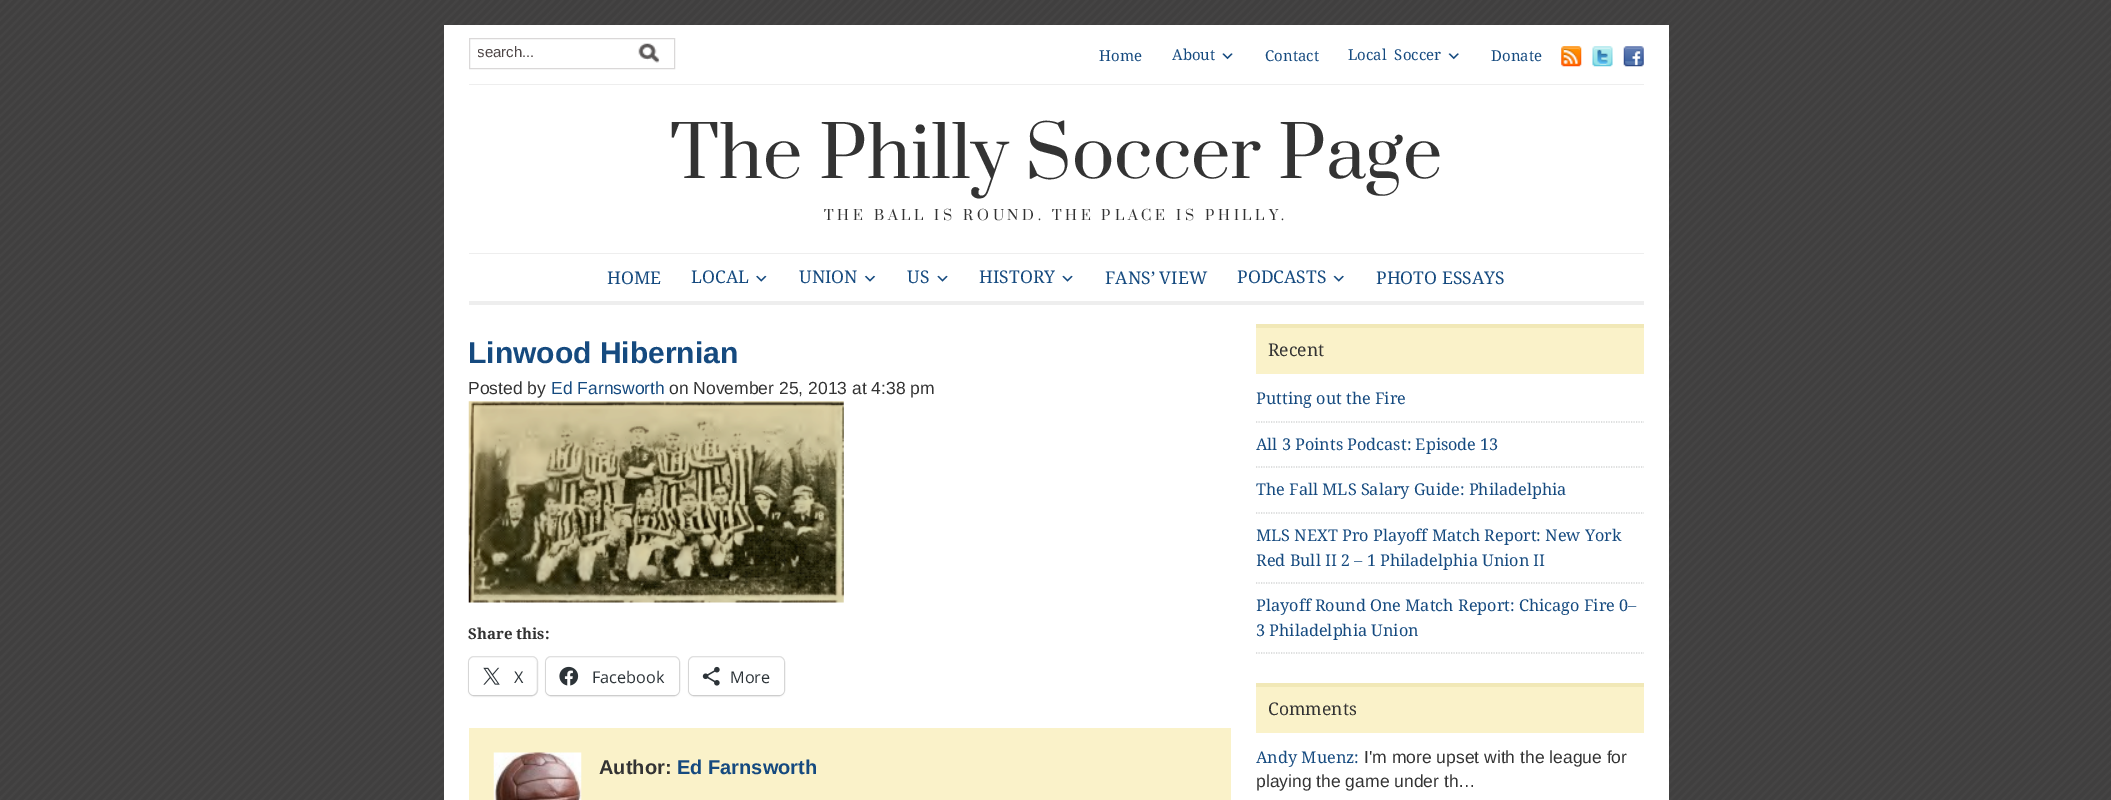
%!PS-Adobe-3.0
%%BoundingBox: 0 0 2111 800
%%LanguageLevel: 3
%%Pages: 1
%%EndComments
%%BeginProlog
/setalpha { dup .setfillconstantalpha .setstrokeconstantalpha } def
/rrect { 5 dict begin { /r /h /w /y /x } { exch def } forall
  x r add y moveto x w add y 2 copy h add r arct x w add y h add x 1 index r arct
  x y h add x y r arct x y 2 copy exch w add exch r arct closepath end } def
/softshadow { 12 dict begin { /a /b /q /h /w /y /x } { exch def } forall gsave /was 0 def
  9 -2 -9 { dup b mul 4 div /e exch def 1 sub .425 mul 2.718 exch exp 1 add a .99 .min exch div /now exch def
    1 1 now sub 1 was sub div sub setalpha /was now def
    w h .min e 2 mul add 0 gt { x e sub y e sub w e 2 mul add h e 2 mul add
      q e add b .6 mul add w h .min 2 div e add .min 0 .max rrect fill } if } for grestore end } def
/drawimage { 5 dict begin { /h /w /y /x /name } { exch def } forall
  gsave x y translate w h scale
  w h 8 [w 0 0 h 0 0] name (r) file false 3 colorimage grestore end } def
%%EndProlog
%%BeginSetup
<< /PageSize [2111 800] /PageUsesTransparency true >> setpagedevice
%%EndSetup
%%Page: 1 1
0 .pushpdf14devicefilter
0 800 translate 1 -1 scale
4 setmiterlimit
1 setgray
0 0 2111 800 rectfill
(images/1.raw) 0 0 2111 800 drawimage
444 25 1225 775 rectfill
0.855 0.847 0.847 setrgbcolor
469.5 38.5 205 30 rectstroke
(images/2.raw) 638 43 22 20 drawimage
(images/3.raw) 1222 53 11 7 drawimage
(images/4.raw) 1448 53 11 7 drawimage
(images/5.raw) 1561 46 21 21 drawimage
(images/6.raw) 1592 46 21 21 drawimage
(images/7.raw) 1623 46 21 21 drawimage
0.933 setgray
469 84 1175 1 rectfill
469 253 1175 1 rectfill
469 301 1175 4 rectfill
(images/8.raw) 756 275 11 7 drawimage
(images/9.raw) 864 275 12 7 drawimage
(images/10.raw) 937 275 11 7 drawimage
(images/10.raw) 1062 275 11 7 drawimage
(images/11.raw) 1333 275 11 7 drawimage
(images/12.raw) 468 401 376 202 drawimage
0.878 setgray
468.5 656.5 69 39 5.5 rrect stroke
0 setgray
469 659 67 37 5 1 0.12 softshadow
1 setgray
469 658 67 37 5 rrect fill
(images/13.raw) 483 667 17 18 drawimage
0.878 setgray
545.5 656.5 134 39 5.5 rrect stroke
0 setgray
546 659 133 37 5 1 0.12 softshadow
1 setgray
546 658 133 37 5 rrect fill
(images/14.raw) 559 666 20 20 drawimage
0.878 setgray
688.5 656.5 96 39 5.5 rrect stroke
0 setgray
689 659 95 37 5 1 0.12 softshadow
1 setgray
689 658 95 37 5 rrect fill
(images/15.raw) 702 666 18 20 drawimage
0.98 0.949 0.788 setrgbcolor
469 728 762 72 rectfill
(images/16.raw) 493 752 89 48 drawimage
1256 328 388 46 rectfill
0.945 0.91 0.718 setrgbcolor
1256 324 388 4 rectfill
0.824 0.831 0.831 setrgbcolor
1.2 setlinewidth
[1.25 1.25] 0 setdash
newpath 1256 422 moveto 1644 422 lineto stroke
newpath 1256 467 moveto 1644 467 lineto stroke
newpath 1256 513 moveto 1644 513 lineto stroke
newpath 1256 583 moveto 1644 583 lineto stroke
newpath 1256 653 moveto 1644 653 lineto stroke
0.98 0.949 0.788 setrgbcolor
1256 687 388 46 rectfill
0.945 0.91 0.718 setrgbcolor
1256 683 388 4 rectfill
gsave
478 44 152 17 rectclip
/LiberationSans-Regular [15 0 0 -15 0 0] selectfont
0.31 0.278 0.278 setrgbcolor
477 57 moveto (search...) show
grestore
/DroidSerif-Regular [15 0 0 -15 0 0] selectfont
0.082 0.29 0.498 setrgbcolor
1099 61 moveto (Home) show
1172 60 moveto (About) show
1265 61 moveto (Contact) show
1348 60 moveto 4 0 32 (Local Soccer) widthshow
1491 61 moveto (Donate) show
/Prata-Regular [70 0 0 -70 0 0] selectfont
0.2 setgray
670 178 moveto (The Philly Soccer Page) show
/Prata-Regular [13.75 0 0 -13.75 0 0] selectfont
824 220 moveto 3.75 0 (THE BALL IS ROUND. THE PLACE IS PHILLY.) ashow
/DroidSerif-Regular [17.5 0 0 -17.5 0 0] selectfont
0.082 0.29 0.498 setrgbcolor
607 284 moveto (HOME) show
691 283 moveto (LOCAL) show
799 283 moveto (UNION) show
907 283 moveto (US) show
979 283 moveto (HISTORY) show
1105 284 moveto (FANS’ VIEW) show
1237 283 moveto (PODCASTS) show
1376 284 moveto (PHOTO ESSAYS) show
/LiberationSans-Bold [30 0 0 -30 0 0] selectfont
468 363 moveto (Linwood Hibernian) show
/LiberationSans-Regular [17.5 0 0 -17.5 0 0] selectfont
0.2 setgray
468 394 moveto (Posted by) show
0.082 0.29 0.498 setrgbcolor
551 394 moveto (Ed Farnsworth) show
0.2 setgray
669 394 moveto (on November 25, 2013 at 4:38 pm) show
/DroidSerif-Bold [15 0 0 -15 0 0] selectfont
468 639 moveto (Share this:) show
/OpenSans-Regular [16.25 0 0 -16.25 0 0] selectfont
0.173 0.2 0.22 setrgbcolor
514 683 moveto (X) show
592 683 moveto (Facebook) show
730 683 moveto (More) show
/LiberationSans-Bold [20 0 0 -20 0 0] selectfont
0.2 setgray
599 774 moveto (Author:) show
0.082 0.29 0.498 setrgbcolor
677 774 moveto (Ed Farnsworth) show
/DroidSerif-Regular [17.5 0 0 -17.5 0 0] selectfont
0.2 setgray
1268 356 moveto (Recent) show
/DroidSerif-Regular [16.25 0 0 -16.25 0 0] selectfont
0.082 0.29 0.498 setrgbcolor
1256 404 moveto (Putting out the Fire) show
1256 450 moveto (All 3 Points Podcast: Episode 13) show
1256 495 moveto (The Fall MLS Salary Guide: Philadelphia) show
1256 541 moveto (MLS NEXT Pro Playoff Match Report: New York) show
1256 566 moveto (Red Bull II 2 – 1 Philadelphia Union II) show
1256 611 moveto (Playoff Round One Match Report: Chicago Fire 0–) show
1256 636 moveto (3 Philadelphia Union) show
/DroidSerif-Regular [17.5 0 0 -17.5 0 0] selectfont
0.2 setgray
1268 715 moveto (Comments) show
/DroidSerif-Regular [16.25 0 0 -16.25 0 0] selectfont
0.082 0.29 0.498 setrgbcolor
1256 763 moveto (Andy Muenz:) show
/LiberationSans-Regular [17.5 0 0 -17.5 0 0] selectfont
0.2 setgray
1364 763 moveto (I'm more upset with the league for) show
1256 787 moveto (playing the game under th…) show
.poppdf14devicefilter showpage
%%EOF
